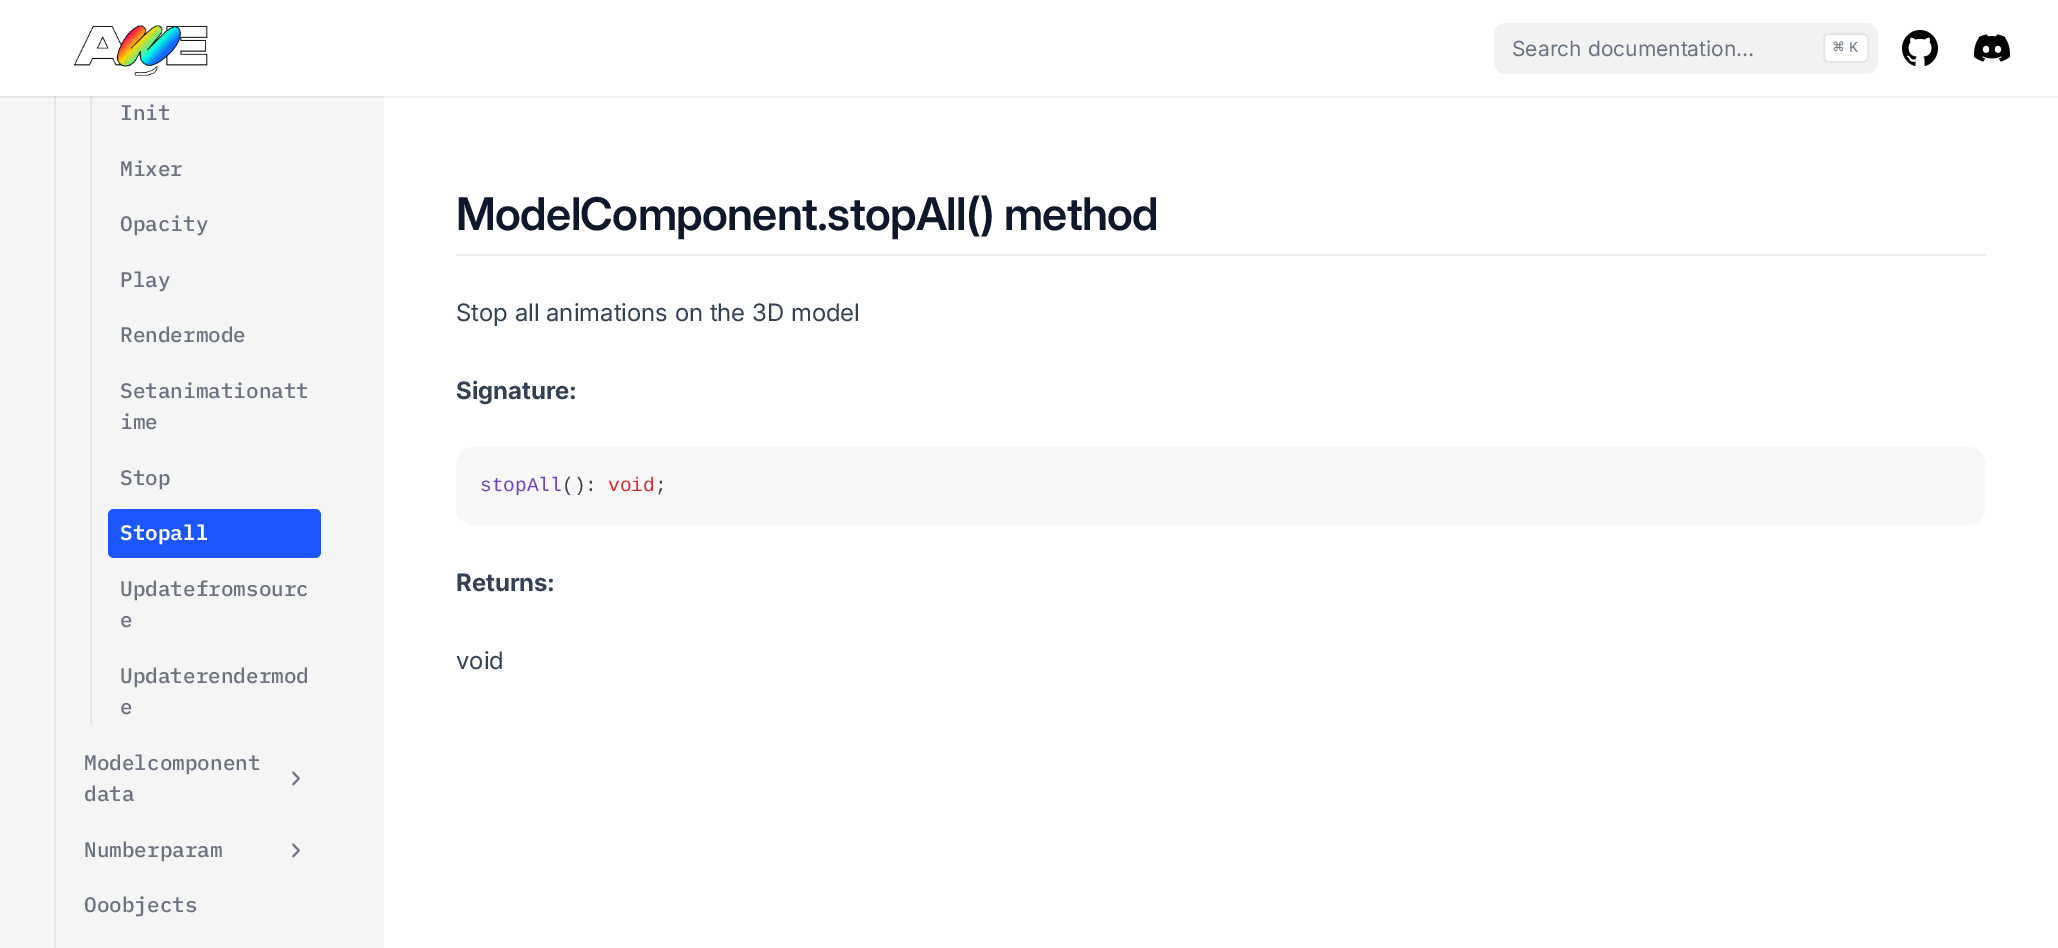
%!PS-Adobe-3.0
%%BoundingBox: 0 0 2058 948
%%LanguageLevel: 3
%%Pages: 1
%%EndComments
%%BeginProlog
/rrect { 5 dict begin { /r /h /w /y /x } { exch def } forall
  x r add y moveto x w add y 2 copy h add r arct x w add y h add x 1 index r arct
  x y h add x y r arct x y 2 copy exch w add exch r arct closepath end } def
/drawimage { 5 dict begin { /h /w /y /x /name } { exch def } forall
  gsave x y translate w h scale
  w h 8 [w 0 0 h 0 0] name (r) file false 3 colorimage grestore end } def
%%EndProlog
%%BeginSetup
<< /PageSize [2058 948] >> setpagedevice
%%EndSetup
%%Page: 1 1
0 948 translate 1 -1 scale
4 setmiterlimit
1 setgray
0 0 2058 948 rectfill
0.941 setgray
384 96 1674 2 rectfill
(images/1.raw) 73 25 135 51 drawimage
0.949 setgray
1494 23 384 51 12 rrect fill
1 setgray
1824 34 44 28 5 rrect gsave fill grestore
0.898 0.906 0.922 setrgbcolor
2 setlinewidth
stroke
(images/2.raw) 1902 30 36 36 drawimage
(images/3.raw) 1974 34 36 28 drawimage
0.961 setgray
0 98 384 850 rectfill
0.902 setgray
0 96 384 2 rectfill
0.898 0.906 0.922 setrgbcolor
54 96 2 852 rectfill
0.843 0.851 0.867 setrgbcolor
54 96 2 2 rectfill
0.898 0.906 0.922 setrgbcolor
90 96 2 630 rectfill
0.843 0.851 0.867 setrgbcolor
90 96 2 2 rectfill
0.11 0.337 0.996 setrgbcolor
108 509 213 49 6 rrect fill
0.42 0.447 0.502 setrgbcolor
1.8 setlinewidth
1 setlinecap
1 setlinejoin
newpath 293 772.5 moveto 299 778.5 lineto 293 784.5 lineto stroke
newpath 293 844.5 moveto 299 850.5 lineto 293 856.5 lineto stroke
0.933 setgray
456 254 1530 2 rectfill
0.969 0.969 0.976 setrgbcolor
456 447 1530 78 18 rrect fill
/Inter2-Regular [21 0 0 -21 0 0] selectfont
0.42 0.447 0.502 setrgbcolor
1512 56 moveto (Search documentation…) show
/DejaVuSansMono-Regular [18 0 0 -18 0 0] selectfont
1833 53 moveto (⌘) show
/LiberationMono-Regular [15 0 0 -15 0 0] selectfont
1849 52 moveto (K) show
/IBMPlexMono-Medium [21 0 0 -21 0 0] selectfont
120 120 moveto (Init) show
120 176 moveto (Mixer) show
120 231 moveto (Opacity) show
120 287 moveto (Play) show
120 342 moveto (Rendermode) show
120 398 moveto (Setanimationatt) show
120 429 moveto (ime) show
120 485 moveto (Stop) show
/IBMPlexMono-SemiBold [21 0 0 -21 0 0] selectfont
1 setgray
120 540 moveto (Stopall) show
/IBMPlexMono-Medium [21 0 0 -21 0 0] selectfont
0.42 0.447 0.502 setrgbcolor
120 596 moveto (Updatefromsourc) show
120 627 moveto (e) show
120 683 moveto (Updaterendermod) show
120 714 moveto (e) show
84 770 moveto (Modelcomponent) show
84 801 moveto (data) show
84 857 moveto (Numberparam) show
84 912 moveto (Ooobjects) show
/Inter-SemiBold [45 0 0 -45 0 0] selectfont
0.059 0.09 0.165 setrgbcolor
456 230 moveto -0.7 0 (ModelComponent.stopAll\(\) method) ashow
/Inter-Regular [24 0 0 -24 0 0] selectfont
0.2 0.255 0.333 setrgbcolor
456 321 moveto (Stop all animations on the 3D model) show
/Inter-Bold [24 0 0 -24 0 0] selectfont
456 399 moveto (Signature:) show
/LiberationMono-Regular [19.5 0 0 -19.5 0 0] selectfont
0.435 0.259 0.757 setrgbcolor
480 491 moveto (stopAll) show
0.255 setgray
562 491 moveto (\(\):) show
0.827 0.184 0.184 setrgbcolor
608 491 moveto (void) show
0.255 setgray
655 491 moveto (;) show
/Inter-Bold [24 0 0 -24 0 0] selectfont
0.2 0.255 0.333 setrgbcolor
456 591 moveto (Returns:) show
/Inter-Regular [24 0 0 -24 0 0] selectfont
456 669 moveto (void) show
showpage
%%EOF
